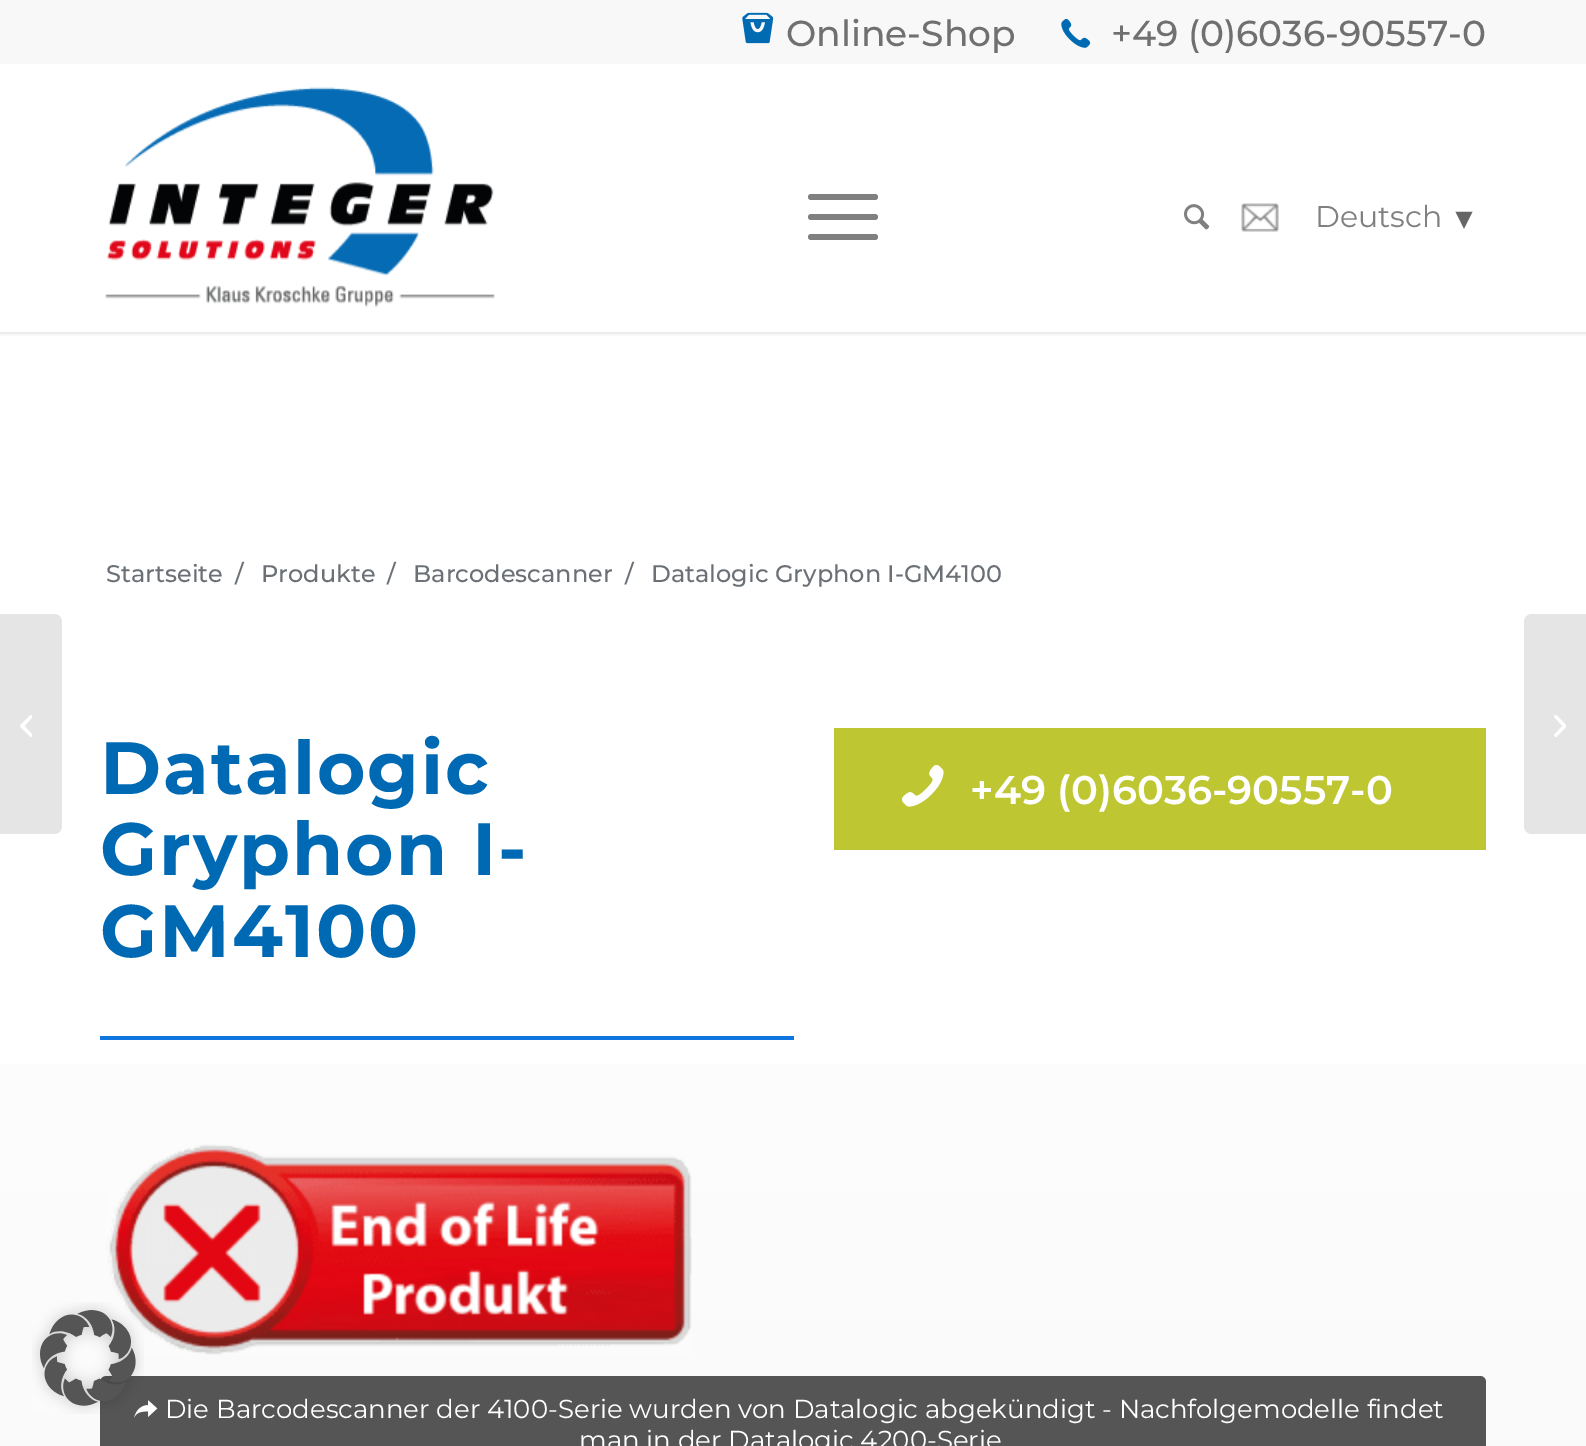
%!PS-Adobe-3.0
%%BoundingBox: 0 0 1586 1446
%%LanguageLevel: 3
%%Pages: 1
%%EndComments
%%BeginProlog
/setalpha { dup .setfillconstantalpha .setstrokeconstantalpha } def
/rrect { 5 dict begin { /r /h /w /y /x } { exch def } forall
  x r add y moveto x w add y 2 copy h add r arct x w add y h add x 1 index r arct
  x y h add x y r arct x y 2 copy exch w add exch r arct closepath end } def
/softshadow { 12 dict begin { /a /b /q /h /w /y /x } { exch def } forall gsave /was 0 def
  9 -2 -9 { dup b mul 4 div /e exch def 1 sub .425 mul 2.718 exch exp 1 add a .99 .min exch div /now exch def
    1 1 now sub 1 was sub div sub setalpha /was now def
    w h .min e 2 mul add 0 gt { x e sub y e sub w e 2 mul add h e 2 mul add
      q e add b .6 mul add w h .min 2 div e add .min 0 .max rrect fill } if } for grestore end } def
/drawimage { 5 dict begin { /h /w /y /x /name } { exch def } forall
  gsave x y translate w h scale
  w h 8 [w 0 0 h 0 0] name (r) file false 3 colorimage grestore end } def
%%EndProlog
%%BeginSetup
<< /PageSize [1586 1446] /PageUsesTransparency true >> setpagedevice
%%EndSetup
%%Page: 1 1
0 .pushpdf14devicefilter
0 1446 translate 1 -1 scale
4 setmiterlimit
1 setgray
0 0 1586 1446 rectfill
gsave newpath 0 1064 moveto 1586 1064 lineto 1586 1446 lineto 0 1446 lineto closepath clip newpath
<< /ShadingType 2 /ColorSpace /DeviceRGB /Coords [793 628 793 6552] /Extend [true true] /Function << /FunctionType 2 /Domain [0 1] /C0 [1 1 1] /C1 [0.867 0.867 0.867] /N 1 >> >> shfill grestore
(images/9.raw) 106 1144 586 211 drawimage
0.333 setgray
100 1376 1386 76 6 rrect fill
(images/10.raw) 134 1400 24 18 drawimage
(images/1.raw) 32 1302 112 112 drawimage
gsave
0 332 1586 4 rectclip
0 setgray
-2 -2 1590 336 0 2 0.1 softshadow
grestore
0.973 setgray
0 0 1586 64 rectfill
(images/2.raw) 742 12 32 32 drawimage
(images/3.raw) 1061 19 30 29 drawimage
(images/4.raw) 105 87 390 221 drawimage
0.502 setgray
808 214 70 6 3 rrect fill
808 194 70 6 3 rrect fill
808 234 70 6 3 rrect fill
(images/5.raw) 1184 204 26 26 drawimage
(images/6.raw) 1241 203 38 29 drawimage
0.898 setgray
newpath 0 614 moveto 54 614 lineto 58.5 614 62 617.5 62 622 curveto 62 826 lineto 62 830.5 58.5 834 54 834 curveto 0 834 lineto closepath fill
(images/7.raw) 20 715 12 22 drawimage
0.745 0.776 0.196 setrgbcolor
834 728 652 122 rectfill
(images/8.raw) 902 765 42 42 drawimage
0.059 0.459 0.875 setrgbcolor
100 1036 694 4 rectfill
0.898 setgray
newpath 1532 614 moveto 1586 614 lineto 1586 834 lineto 1532 834 lineto 1527.5 834 1524 830.5 1524 826 curveto 1524 622 lineto 1524 617.5 1527.5 614 1532 614 curveto closepath fill
(images/11.raw) 1554 715 12 22 drawimage
/Montserrat-Medium [36 0 0 -36 0 0] selectfont
0.439 setgray
786 46 moveto (Online-Shop) show
1111 46 moveto (+49 \(0\)6036-90557-0) show
/Montserrat-Regular [30 0 0 -30 0 0] selectfont
0.502 setgray
1315 227 moveto (Deutsch) show
/Montserrat-Bold [40 0 0 -40 0 0] selectfont
0.4 setgray
1452 231 moveto (▼) show
/Montserrat-Medium [24 0 0 -24 0 0] selectfont
0.416 0.439 0.459 setrgbcolor
106 582 moveto (Startseite) show
235 582 moveto (/) show
261 582 moveto (Produkte) show
387 582 moveto (/) show
413 582 moveto (Barcodescanner) show
625 582 moveto (/) show
651 582 moveto (Datalogic Gryphon I-GM4100) show
/Montserrat-Bold [74 0 0 -74 0 0] selectfont
0 0.412 0.706 setrgbcolor
100 794 moveto 2 0 (Datalogic) ashow
100 875 moveto 2 0 (Gryphon I-) ashow
100 957 moveto 2 0 (GM4100) ashow
/Montserrat-SemiBold [40 0 0 -40 0 0] selectfont
1 setgray
970 804 moveto (+49 \(0\)6036-90557-0) show
/Montserrat-Regular [26 0 0 -26 0 0] selectfont
165 1418 moveto (Die Barcodescanner der 4100-Serie wurden von Datalogic abgekündigt - Nachfolgemodelle findet) show
579 1449 moveto (man in der Datalogic 4200-Serie) show
.poppdf14devicefilter showpage
%%EOF
